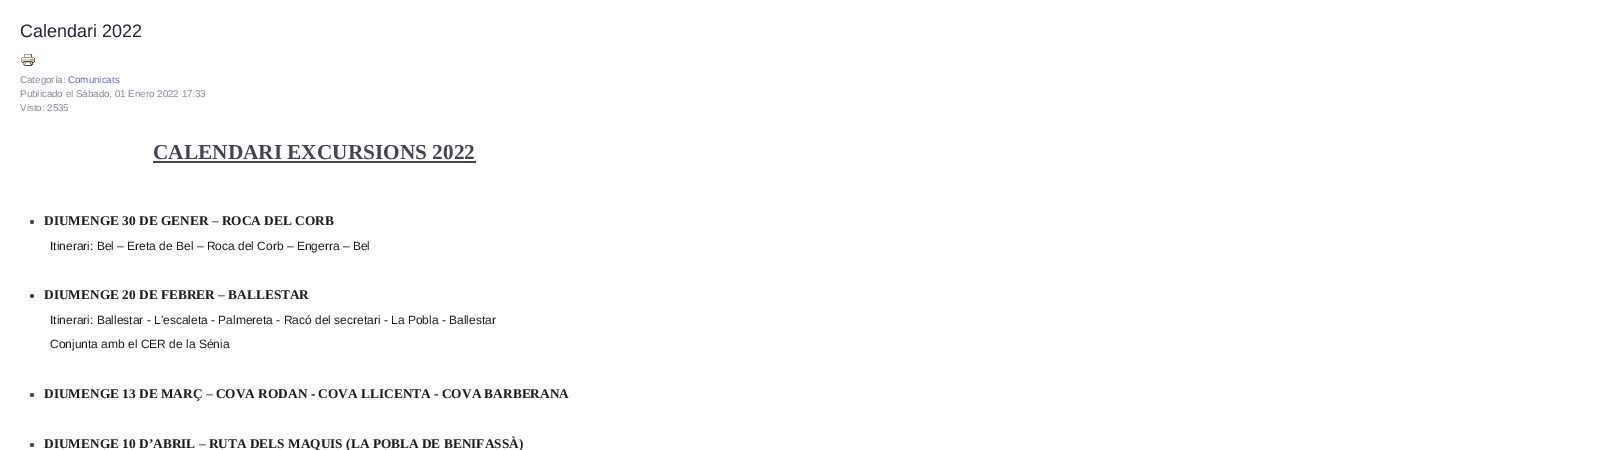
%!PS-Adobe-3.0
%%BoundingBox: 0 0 1599 450
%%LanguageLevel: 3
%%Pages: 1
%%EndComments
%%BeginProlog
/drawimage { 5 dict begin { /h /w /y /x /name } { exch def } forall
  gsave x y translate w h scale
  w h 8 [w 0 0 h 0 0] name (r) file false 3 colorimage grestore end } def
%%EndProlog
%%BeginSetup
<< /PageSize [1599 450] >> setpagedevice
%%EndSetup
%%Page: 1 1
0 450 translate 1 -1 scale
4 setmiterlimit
1 setgray
0 0 1599 450 rectfill
(images/1.raw) 21 54 14 12 drawimage
0.267 0.267 0.333 setrgbcolor
153 161 323 2 rectfill
newpath 32 222 2 0 360 arc closepath fill
newpath 32 296 2 0 360 arc closepath fill
newpath 32 395 2 0 360 arc closepath fill
newpath 32 445 2 0 360 arc closepath fill
/LiberationSans-Regular [18 0 0 -18 0 0] selectfont
0.133 0.133 0.2 setrgbcolor
20 37 moveto (Calendari 2022) show
/LiberationSans-Regular [9.75 0 0 -9.75 0 0] selectfont
0.533 0.533 0.6 setrgbcolor
20 83 moveto (Categoría:) show
0.4 0.4 0.8 setrgbcolor
68 83 moveto (Comunicats) show
0.533 0.533 0.6 setrgbcolor
20 97 moveto (Publicado el Sábado, 01 Enero 2022 17:33) show
20 111 moveto (Visto: 2535) show
/LiberationSerif-Bold [21.3 0 0 -21.3 0 0] selectfont
0.267 0.267 0.333 setrgbcolor
153 159 moveto (CALENDARI EXCURSIONS 2022) show
/LiberationSerif-Bold [13.35 0 0 -13.35 0 0] selectfont
0.114 setgray
44 225 moveto (DIUMENGE 30 DE GENER – ROCA DEL CORB) show
/LiberationSans-Regular [12 0 0 -12 0 0] selectfont
50 250 moveto (Itinerari: Bel – Ereta de Bel – Roca del Corb – Engerra – Bel) show
/LiberationSerif-Bold [13.35 0 0 -13.35 0 0] selectfont
44 299 moveto (DIUMENGE 20 DE FEBRER – BALLESTAR) show
/LiberationSans-Regular [12 0 0 -12 0 0] selectfont
50 324 moveto (Itinerari: Ballestar - L'escaleta - Palmereta - Racó del secretari - La Pobla - Ballestar) show
50 348 moveto (Conjunta amb el CER de la Sénia) show
/LiberationSerif-Bold [13.35 0 0 -13.35 0 0] selectfont
44 398 moveto (DIUMENGE 13 DE MARÇ – COVA RODAN - COVA LLICENTA - COVA BARBERANA) show
44 448 moveto (DIUMENGE 10 D’ABRIL – RUTA DELS MAQUIS \(LA POBLA DE BENIFASSÀ\)) show
showpage
%%EOF
